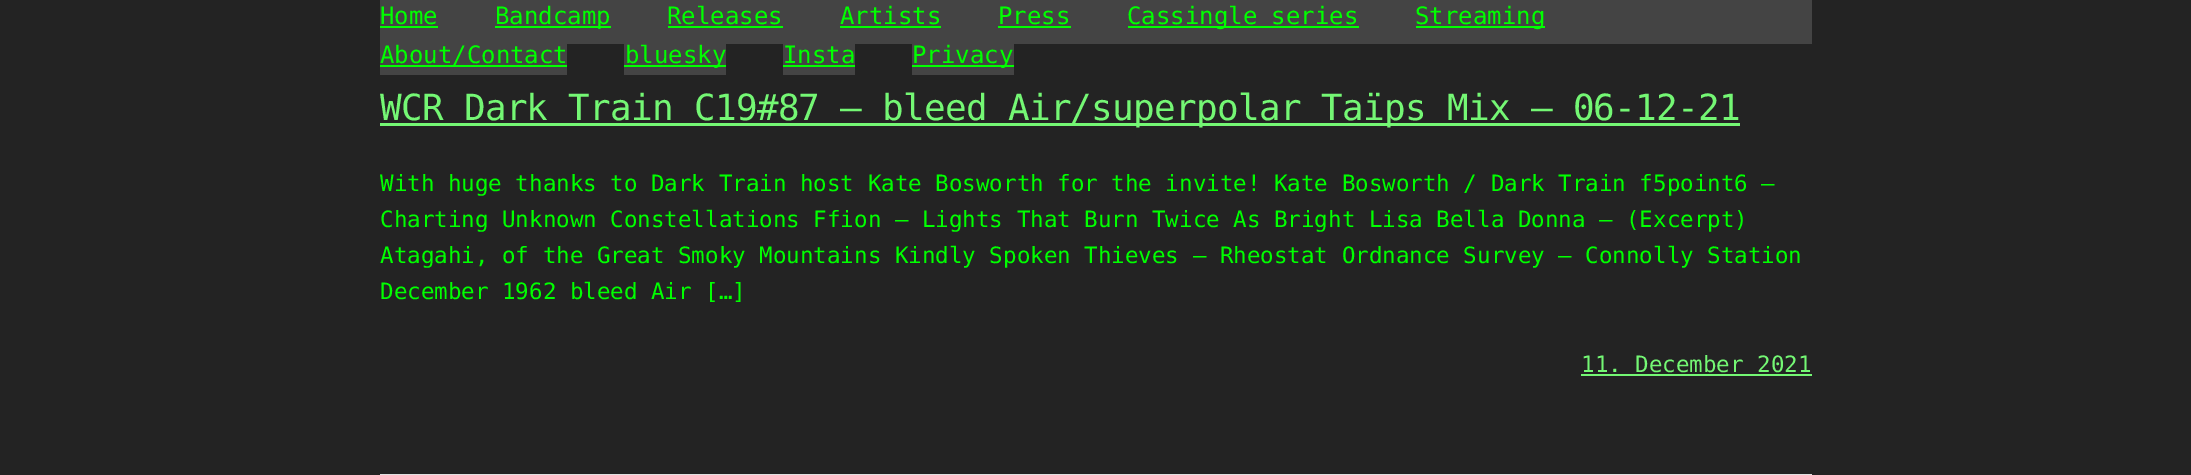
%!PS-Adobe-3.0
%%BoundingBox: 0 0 2191 475
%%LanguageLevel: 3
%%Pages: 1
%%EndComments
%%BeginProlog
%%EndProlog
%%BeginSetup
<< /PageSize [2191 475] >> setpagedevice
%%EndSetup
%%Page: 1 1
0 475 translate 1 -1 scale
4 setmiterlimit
0.137 setgray
0 0 2191 475 rectfill
0.267 setgray
380 0 1432 44 rectfill
0 1 0 setrgbcolor
380 26 58 2 rectfill
495 26 116 2 rectfill
668 26 115 2 rectfill
840 26 101 2 rectfill
998 26 73 2 rectfill
1128 26 231 2 rectfill
1416 26 129 2 rectfill
0.267 setgray
380 44 187 31 rectfill
0 1 0 setrgbcolor
380 65 187 2 rectfill
0.267 setgray
624 44 102 31 rectfill
0 1 0 setrgbcolor
624 65 102 2 rectfill
0.267 setgray
783 44 72 31 rectfill
0 1 0 setrgbcolor
783 65 72 2 rectfill
0.267 setgray
912 44 102 31 rectfill
0 1 0 setrgbcolor
912 65 102 2 rectfill
0.455 0.969 0.455 setrgbcolor
380 123 1360 3 rectfill
1581 374 231 2 rectfill
0.882 setgray
380 474 1432 1 rectfill
/DejaVuSansMono-Regular [24 0 0 -24 0 0] selectfont
0 1 0 setrgbcolor
380 24 moveto (Home) show
495 24 moveto (Bandcamp) show
667 24 moveto (Releases) show
840 24 moveto (Artists) show
998 24 moveto (Press) show
1127 24 moveto (Cassingle series) show
1415 24 moveto (Streaming) show
380 63 moveto (About/Contact) show
625 63 moveto (bluesky) show
783 63 moveto (Insta) show
912 63 moveto (Privacy) show
/DejaVuSansMono-Regular [36 0 0 -36 0 0] selectfont
0.455 0.969 0.455 setrgbcolor
380 120 moveto -0.75 0 (WCR Dark Train C19#87 – bleed Air/superpolar Taïps Mix – 06-12-21) ashow
/DejaVuSansMono-Regular [22.5 0 0 -22.5 0 0] selectfont
0 1 0 setrgbcolor
380 191 moveto (With huge thanks to Dark Train host Kate Bosworth for the invite! Kate Bosworth / Dark Train f5point6 –) show
380 227 moveto (Charting Unknown Constellations Ffion – Lights That Burn Twice As Bright Lisa Bella Donna – \(Excerpt\)) show
380 263 moveto (Atagahi, of the Great Smoky Mountains Kindly Spoken Thieves – Rheostat Ordnance Survey – Connolly Station) show
380 299 moveto (December 1962 bleed Air […]) show
0.455 0.969 0.455 setrgbcolor
1581 372 moveto (11. December 2021) show
showpage
%%EOF
